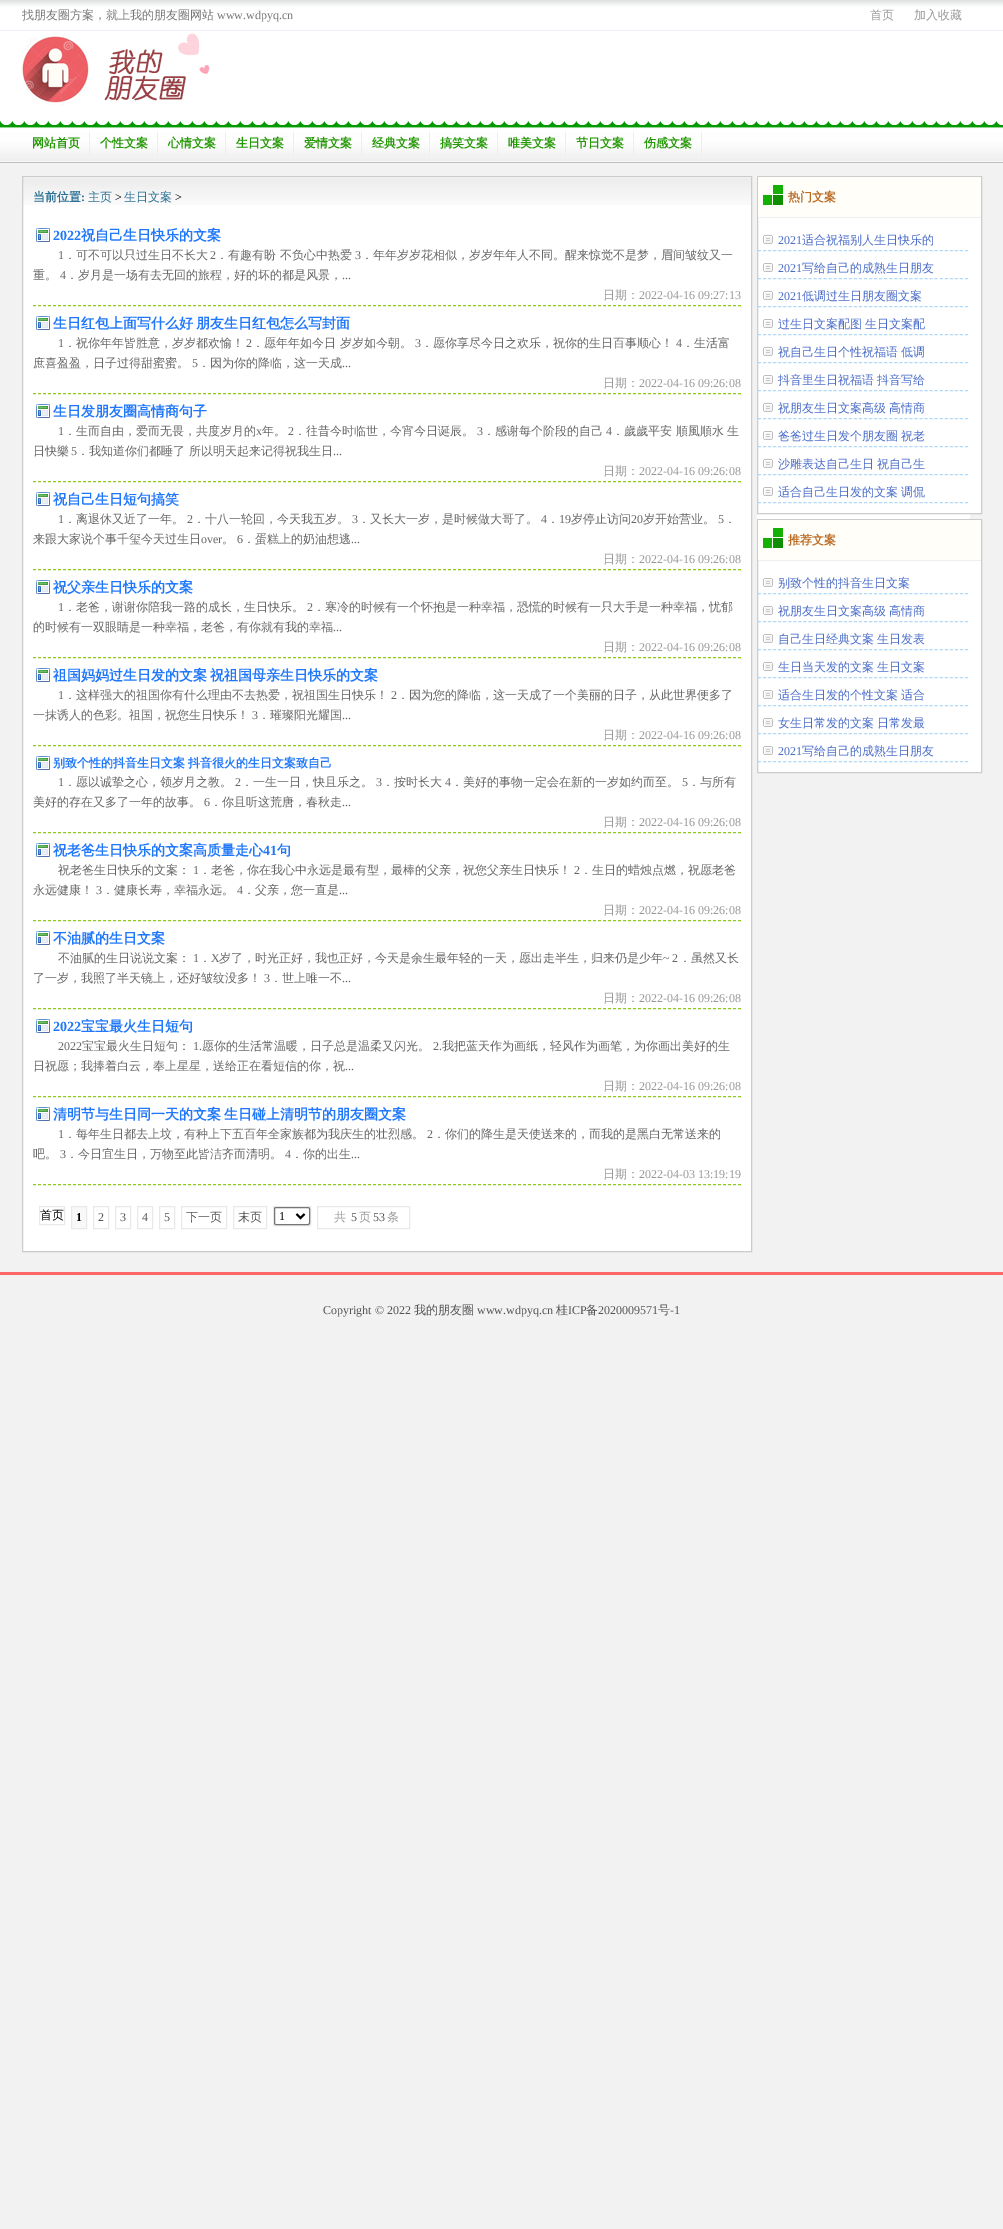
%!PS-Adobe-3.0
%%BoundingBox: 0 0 1003 2229
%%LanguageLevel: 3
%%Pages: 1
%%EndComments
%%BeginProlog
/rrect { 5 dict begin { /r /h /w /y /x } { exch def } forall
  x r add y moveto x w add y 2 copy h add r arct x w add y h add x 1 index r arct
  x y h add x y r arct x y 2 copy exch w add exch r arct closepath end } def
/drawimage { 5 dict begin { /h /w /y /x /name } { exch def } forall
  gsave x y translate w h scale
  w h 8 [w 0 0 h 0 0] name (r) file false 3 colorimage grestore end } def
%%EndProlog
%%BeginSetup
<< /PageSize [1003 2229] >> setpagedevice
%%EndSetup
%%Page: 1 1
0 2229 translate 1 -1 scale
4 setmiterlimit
0.949 setgray
0 0 1003 2229 rectfill
(images/1.raw) 0 0 1003 30 drawimage
0.933 0.933 1 setrgbcolor
0 30 1003 1 rectfill
1 setgray
0 31 1003 90 rectfill
(images/2.raw) 22 33 188 73 drawimage
(images/3.raw) 0 121 1003 42 drawimage
0.933 setgray
89 132 1 23 rectfill
157 132 1 23 rectfill
225 132 1 23 rectfill
293 132 1 23 rectfill
361 132 1 23 rectfill
429 132 1 23 rectfill
497 132 1 23 rectfill
565 132 1 23 rectfill
633 132 1 23 rectfill
701 132 1 23 rectfill
1 setgray
23 177 728 1074 rectfill
(images/4.raw) 23 178 728 27 drawimage
0.8 setgray
22.5 176.5 729 1075 rectstroke
(images/5.raw) 36 228 14 14 drawimage
0.561 0.792 0.11 setrgbcolor
[3 2] 0 setdash
newpath 33 305.5 moveto 741 305.5 lineto stroke
(images/5.raw) 36 316 14 14 drawimage
newpath 33 393.5 moveto 741 393.5 lineto stroke
(images/5.raw) 36 404 14 14 drawimage
newpath 33 481.5 moveto 741 481.5 lineto stroke
(images/5.raw) 36 492 14 14 drawimage
newpath 33 569.5 moveto 741 569.5 lineto stroke
(images/5.raw) 36 580 14 14 drawimage
newpath 33 657.5 moveto 741 657.5 lineto stroke
(images/5.raw) 36 668 14 14 drawimage
newpath 33 745.5 moveto 741 745.5 lineto stroke
(images/5.raw) 36 756 14 14 drawimage
newpath 33 832.5 moveto 741 832.5 lineto stroke
(images/5.raw) 36 843 14 14 drawimage
newpath 33 920.5 moveto 741 920.5 lineto stroke
(images/5.raw) 36 931 14 14 drawimage
newpath 33 1008.5 moveto 741 1008.5 lineto stroke
(images/5.raw) 36 1019 14 14 drawimage
newpath 33 1096.5 moveto 741 1096.5 lineto stroke
(images/5.raw) 36 1107 14 14 drawimage
newpath 33 1184.5 moveto 741 1184.5 lineto stroke
0.914 setgray
[] 0 setdash
39.5 1206.5 25 18 rectstroke
0.973 setgray
newpath 71.5 1206.5 moveto 86.5 1206.5 lineto 86.5 1228.5 lineto 71.5 1228.5 lineto closepath gsave fill grestore
0.914 setgray
stroke
93.5 1206.5 15 22 rectstroke
115.5 1206.5 15 22 rectstroke
137.5 1206.5 15 22 rectstroke
159.5 1206.5 15 22 rectstroke
181.5 1206.5 45 22 rectstroke
233.5 1206.5 33 22 rectstroke
273.5 1206.5 37 19 rectstroke
0.463 setgray
274.5 1207.5 35 17 1.5 rrect stroke
0 setgray
2 setlinewidth
newpath 296.5 1214 moveto 300.5 1218 lineto 304.5 1214 lineto stroke
0.914 setgray
1 setlinewidth
317.5 1206.5 92 22 rectstroke
1 setgray
757 514 213 5 rectfill
758 218 223 295 rectfill
0.8 setgray
757.5 176.5 224 337 rectstroke
1 0.996 0.973 setrgbcolor
758 177 223 40 rectfill
0.933 setgray
758 217 223 1 rectfill
(images/6.raw) 763 185 20 20 drawimage
(images/7.raw) 763 235 10 9 drawimage
0.694 0.851 0.98 setrgbcolor
[3 2.05] 0 setdash
newpath 758 250.5 moveto 968 250.5 lineto stroke
(images/7.raw) 763 263 10 9 drawimage
newpath 758 278.5 moveto 968 278.5 lineto stroke
(images/7.raw) 763 291 10 9 drawimage
newpath 758 306.5 moveto 968 306.5 lineto stroke
(images/7.raw) 763 319 10 9 drawimage
newpath 758 334.5 moveto 968 334.5 lineto stroke
(images/7.raw) 763 347 10 9 drawimage
newpath 758 362.5 moveto 968 362.5 lineto stroke
(images/7.raw) 763 375 10 9 drawimage
newpath 758 390.5 moveto 968 390.5 lineto stroke
(images/7.raw) 763 403 10 9 drawimage
newpath 758 418.5 moveto 968 418.5 lineto stroke
(images/7.raw) 763 431 10 9 drawimage
newpath 758 446.5 moveto 968 446.5 lineto stroke
(images/7.raw) 763 459 10 9 drawimage
newpath 758 474.5 moveto 968 474.5 lineto stroke
(images/7.raw) 763 487 10 9 drawimage
newpath 758 502.5 moveto 968 502.5 lineto stroke
1 setgray
758 561 223 211 rectfill
0.8 setgray
[] 0 setdash
757.5 519.5 224 253 rectstroke
1 0.996 0.973 setrgbcolor
758 520 223 40 rectfill
0.933 setgray
758 560 223 1 rectfill
(images/6.raw) 763 528 20 20 drawimage
(images/7.raw) 763 578 10 9 drawimage
0.694 0.851 0.98 setrgbcolor
[3 2.05] 0 setdash
newpath 758 593.5 moveto 968 593.5 lineto stroke
(images/7.raw) 763 606 10 9 drawimage
newpath 758 621.5 moveto 968 621.5 lineto stroke
(images/7.raw) 763 634 10 9 drawimage
newpath 758 649.5 moveto 968 649.5 lineto stroke
(images/7.raw) 763 662 10 9 drawimage
newpath 758 677.5 moveto 968 677.5 lineto stroke
(images/7.raw) 763 690 10 9 drawimage
newpath 758 705.5 moveto 968 705.5 lineto stroke
(images/7.raw) 763 718 10 9 drawimage
newpath 758 733.5 moveto 968 733.5 lineto stroke
(images/7.raw) 763 746 10 9 drawimage
newpath 758 761.5 moveto 968 761.5 lineto stroke
1 0.4 0.4 setrgbcolor
0 1272 1003 3 rectfill
/WenQuanYiZenHei-Medium [12 0 0 -12 0 0] selectfont
0.467 setgray
22 19 moveto (找朋友圈方案，就上我的朋友圈网站) show
/LiberationSerif-Regular [12 0 0 -12 0 0] selectfont
217 19 moveto (www.wdpyq.cn) show
/WenQuanYiZenHei-Medium [12 0 0 -12 0 0] selectfont
0.6 setgray
870 19 moveto (首页) show
914 19 moveto (加入收藏) show
/WenQuanYiZenHei-Bold [12 0 0 -12 0 0] selectfont
0.141 0.596 0.02 setrgbcolor
32 147 moveto (网站首页) show
100 147 moveto (个性文案) show
168 147 moveto (心情文案) show
236 147 moveto (生日文案) show
304 147 moveto (爱情文案) show
372 147 moveto (经典文案) show
440 147 moveto (搞笑文案) show
508 147 moveto (唯美文案) show
576 147 moveto (节日文案) show
644 147 moveto (伤感文案) show
0.169 0.443 0.584 setrgbcolor
33 201 moveto (当前位置) show
/LiberationSerif-Bold [12 0 0 -12 0 0] selectfont
81 201 moveto (:) show
/WenQuanYiZenHei-Medium [12 0 0 -12 0 0] selectfont
88 201 moveto (主页) show
/LiberationSerif-Regular [12 0 0 -12 0 0] selectfont
0 setgray
115 201 moveto (>) show
/WenQuanYiZenHei-Medium [12 0 0 -12 0 0] selectfont
0.169 0.443 0.584 setrgbcolor
124 201 moveto (生日文案) show
/LiberationSerif-Regular [12 0 0 -12 0 0] selectfont
0 setgray
175 201 moveto (>) show
/LiberationSerif-Bold [14 0 0 -14 0 0] selectfont
0.122 0.467 0.988 setrgbcolor
53 240 moveto (2022) show
/WenQuanYiZenHei-Bold [14 0 0 -14 0 0] selectfont
81 240 moveto (祝自己生日快乐的文案) show
/LiberationSerif-Regular [12 0 0 -12 0 0] selectfont
0.4 setgray
58 259 moveto (1) show
/WenQuanYiZenHei-Medium [12 0 0 -12 0 0] selectfont
64 259 moveto (．可不可以只过生日不长大) show
/LiberationSerif-Regular [12 0 0 -12 0 0] selectfont
210 259 moveto (2) show
/WenQuanYiZenHei-Medium [12 0 0 -12 0 0] selectfont
216 259 moveto (．有趣有盼 不负心中热爱) show
/LiberationSerif-Regular [12 0 0 -12 0 0] selectfont
355 259 moveto (3) show
/WenQuanYiZenHei-Medium [12 0 0 -12 0 0] selectfont
361 259 moveto (．年年岁岁花相似，岁岁年年人不同。醒来惊觉不是梦，眉间皱纹又一) show
33 279 moveto (重。) show
/LiberationSerif-Regular [12 0 0 -12 0 0] selectfont
60 279 moveto (4) show
/WenQuanYiZenHei-Medium [12 0 0 -12 0 0] selectfont
66 279 moveto (．岁月是一场有去无回的旅程，好的坏的都是风景，) show
/LiberationSerif-Regular [12 0 0 -12 0 0] selectfont
342 279 moveto (...) show
/WenQuanYiZenHei-Medium [12 0 0 -12 0 0] selectfont
0.6 setgray
603 299 moveto (日期：) show
/LiberationSerif-Regular [12 0 0 -12 0 0] selectfont
639 299 moveto (2022-04-16 09:27:13) show
/WenQuanYiZenHei-Bold [14 0 0 -14 0 0] selectfont
0.122 0.467 0.988 setrgbcolor
53 328 moveto -1 0 32 (生日红包上面写什么好 朋友生日红包怎么写封面) widthshow
/LiberationSerif-Regular [12 0 0 -12 0 0] selectfont
0.4 setgray
58 347 moveto (1) show
/WenQuanYiZenHei-Medium [12 0 0 -12 0 0] selectfont
64 347 moveto (．祝你年年皆胜意，岁岁都欢愉！) show
/LiberationSerif-Regular [12 0 0 -12 0 0] selectfont
246 347 moveto (2) show
/WenQuanYiZenHei-Medium [12 0 0 -12 0 0] selectfont
252 347 moveto (．愿年年如今日 岁岁如今朝。) show
/LiberationSerif-Regular [12 0 0 -12 0 0] selectfont
415 347 moveto (3) show
/WenQuanYiZenHei-Medium [12 0 0 -12 0 0] selectfont
421 347 moveto (．愿你享尽今日之欢乐，祝你的生日百事顺心！) show
/LiberationSerif-Regular [12 0 0 -12 0 0] selectfont
676 347 moveto (4) show
/WenQuanYiZenHei-Medium [12 0 0 -12 0 0] selectfont
682 347 moveto (．生活富) show
33 367 moveto (庶喜盈盈，日子过得甜蜜蜜。) show
/LiberationSerif-Regular [12 0 0 -12 0 0] selectfont
192 367 moveto (5) show
/WenQuanYiZenHei-Medium [12 0 0 -12 0 0] selectfont
198 367 moveto (．因为你的降临，这一天成) show
/LiberationSerif-Regular [12 0 0 -12 0 0] selectfont
342 367 moveto (...) show
/WenQuanYiZenHei-Medium [12 0 0 -12 0 0] selectfont
0.6 setgray
603 387 moveto (日期：) show
/LiberationSerif-Regular [12 0 0 -12 0 0] selectfont
639 387 moveto (2022-04-16 09:26:08) show
/WenQuanYiZenHei-Bold [14 0 0 -14 0 0] selectfont
0.122 0.467 0.988 setrgbcolor
53 416 moveto (生日发朋友圈高情商句子) show
/LiberationSerif-Regular [12 0 0 -12 0 0] selectfont
0.4 setgray
58 435 moveto (1) show
/WenQuanYiZenHei-Medium [12 0 0 -12 0 0] selectfont
64 435 moveto (．生而自由，爱而无畏，共度岁月的) show
/LiberationSerif-Regular [12 0 0 -12 0 0] selectfont
256 435 moveto (x) show
/WenQuanYiZenHei-Medium [12 0 0 -12 0 0] selectfont
262 435 moveto (年。) show
/LiberationSerif-Regular [12 0 0 -12 0 0] selectfont
288 435 moveto (2) show
/WenQuanYiZenHei-Medium [12 0 0 -12 0 0] selectfont
294 435 moveto (．往昔今时临世，今宵今日诞辰。) show
/LiberationSerif-Regular [12 0 0 -12 0 0] selectfont
477 435 moveto (3) show
/WenQuanYiZenHei-Medium [12 0 0 -12 0 0] selectfont
483 435 moveto (．感谢每个阶段的自己) show
/LiberationSerif-Regular [12 0 0 -12 0 0] selectfont
606 435 moveto (4) show
/WenQuanYiZenHei-Medium [12 0 0 -12 0 0] selectfont
612 435 moveto (．歲歲平安 順風順水 生) show
33 455 moveto (日快樂) show
/LiberationSerif-Regular [12 0 0 -12 0 0] selectfont
71 455 moveto (5) show
/WenQuanYiZenHei-Medium [12 0 0 -12 0 0] selectfont
77 455 moveto (．我知道你们都睡了 所以明天起来记得祝我生日) show
/LiberationSerif-Regular [12 0 0 -12 0 0] selectfont
333 455 moveto (...) show
/WenQuanYiZenHei-Medium [12 0 0 -12 0 0] selectfont
0.6 setgray
603 475 moveto (日期：) show
/LiberationSerif-Regular [12 0 0 -12 0 0] selectfont
639 475 moveto (2022-04-16 09:26:08) show
/WenQuanYiZenHei-Bold [14 0 0 -14 0 0] selectfont
0.122 0.467 0.988 setrgbcolor
53 504 moveto (祝自己生日短句搞笑) show
/LiberationSerif-Regular [12 0 0 -12 0 0] selectfont
0.4 setgray
58 523 moveto (1) show
/WenQuanYiZenHei-Medium [12 0 0 -12 0 0] selectfont
64 523 moveto (．离退休又近了一年。) show
/LiberationSerif-Regular [12 0 0 -12 0 0] selectfont
187 523 moveto (2) show
/WenQuanYiZenHei-Medium [12 0 0 -12 0 0] selectfont
193 523 moveto (．十八一轮回，今天我五岁。) show
/LiberationSerif-Regular [12 0 0 -12 0 0] selectfont
352 523 moveto (3) show
/WenQuanYiZenHei-Medium [12 0 0 -12 0 0] selectfont
358 523 moveto (．又长大一岁，是时候做大哥了。) show
/LiberationSerif-Regular [12 0 0 -12 0 0] selectfont
541 523 moveto (4) show
/WenQuanYiZenHei-Medium [12 0 0 -12 0 0] selectfont
547 523 moveto (．) show
/LiberationSerif-Regular [12 0 0 -12 0 0] selectfont
559 523 moveto (19) show
/WenQuanYiZenHei-Medium [12 0 0 -12 0 0] selectfont
571 523 moveto (岁停止访问) show
/LiberationSerif-Regular [12 0 0 -12 0 0] selectfont
631 523 moveto (20) show
/WenQuanYiZenHei-Medium [12 0 0 -12 0 0] selectfont
643 523 moveto (岁开始营业。) show
/LiberationSerif-Regular [12 0 0 -12 0 0] selectfont
718 523 moveto (5) show
/WenQuanYiZenHei-Medium [12 0 0 -12 0 0] selectfont
724 523 moveto (．) show
33 543 moveto (来跟大家说个事千玺今天过生日) show
/LiberationSerif-Regular [12 0 0 -12 0 0] selectfont
201 543 moveto (over) show
/WenQuanYiZenHei-Medium [12 0 0 -12 0 0] selectfont
222 543 moveto (。) show
/LiberationSerif-Regular [12 0 0 -12 0 0] selectfont
237 543 moveto (6) show
/WenQuanYiZenHei-Medium [12 0 0 -12 0 0] selectfont
243 543 moveto (．蛋糕上的奶油想逃) show
/LiberationSerif-Regular [12 0 0 -12 0 0] selectfont
351 543 moveto (...) show
/WenQuanYiZenHei-Medium [12 0 0 -12 0 0] selectfont
0.6 setgray
603 563 moveto (日期：) show
/LiberationSerif-Regular [12 0 0 -12 0 0] selectfont
639 563 moveto (2022-04-16 09:26:08) show
/WenQuanYiZenHei-Bold [14 0 0 -14 0 0] selectfont
0.122 0.467 0.988 setrgbcolor
53 592 moveto (祝父亲生日快乐的文案) show
/LiberationSerif-Regular [12 0 0 -12 0 0] selectfont
0.4 setgray
58 611 moveto (1) show
/WenQuanYiZenHei-Medium [12 0 0 -12 0 0] selectfont
64 611 moveto (．老爸，谢谢你陪我一路的成长，生日快乐。) show
/LiberationSerif-Regular [12 0 0 -12 0 0] selectfont
307 611 moveto (2) show
/WenQuanYiZenHei-Medium [12 0 0 -12 0 0] selectfont
313 611 moveto (．寒冷的时候有一个怀抱是一种幸福，恐慌的时候有一只大手是一种幸福，忧郁) show
33 631 moveto (的时候有一双眼睛是一种幸福，老爸，有你就有我的幸福) show
/LiberationSerif-Regular [12 0 0 -12 0 0] selectfont
333 631 moveto (...) show
/WenQuanYiZenHei-Medium [12 0 0 -12 0 0] selectfont
0.6 setgray
603 651 moveto (日期：) show
/LiberationSerif-Regular [12 0 0 -12 0 0] selectfont
639 651 moveto (2022-04-16 09:26:08) show
/WenQuanYiZenHei-Bold [14 0 0 -14 0 0] selectfont
0.122 0.467 0.988 setrgbcolor
53 680 moveto -1 0 32 (祖国妈妈过生日发的文案 祝祖国母亲生日快乐的文案) widthshow
/LiberationSerif-Regular [12 0 0 -12 0 0] selectfont
0.4 setgray
58 699 moveto (1) show
/WenQuanYiZenHei-Medium [12 0 0 -12 0 0] selectfont
64 699 moveto (．这样强大的祖国你有什么理由不去热爱，祝祖国生日快乐！) show
/LiberationSerif-Regular [12 0 0 -12 0 0] selectfont
391 699 moveto (2) show
/WenQuanYiZenHei-Medium [12 0 0 -12 0 0] selectfont
397 699 moveto (．因为您的降临，这一天成了一个美丽的日子，从此世界便多了) show
33 719 moveto (一抹诱人的色彩。祖国，祝您生日快乐！) show
/LiberationSerif-Regular [12 0 0 -12 0 0] selectfont
252 719 moveto (3) show
/WenQuanYiZenHei-Medium [12 0 0 -12 0 0] selectfont
258 719 moveto (．璀璨阳光耀国) show
/LiberationSerif-Regular [12 0 0 -12 0 0] selectfont
342 719 moveto (...) show
/WenQuanYiZenHei-Medium [12 0 0 -12 0 0] selectfont
0.6 setgray
603 739 moveto (日期：) show
/LiberationSerif-Regular [12 0 0 -12 0 0] selectfont
639 739 moveto (2022-04-16 09:26:08) show
/WenQuanYiZenHei-Bold [12 0 0 -12 0 0] selectfont
0.122 0.467 0.988 setrgbcolor
53 767 moveto -1 0 32 (别致个性的抖音生日文案 抖音很火的生日文案致自己) widthshow
/LiberationSerif-Regular [12 0 0 -12 0 0] selectfont
0.4 setgray
58 786 moveto (1) show
/WenQuanYiZenHei-Medium [12 0 0 -12 0 0] selectfont
64 786 moveto (．愿以诚挚之心，领岁月之教。) show
/LiberationSerif-Regular [12 0 0 -12 0 0] selectfont
235 786 moveto (2) show
/WenQuanYiZenHei-Medium [12 0 0 -12 0 0] selectfont
241 786 moveto (．一生一日，快且乐之。) show
/LiberationSerif-Regular [12 0 0 -12 0 0] selectfont
376 786 moveto (3) show
/WenQuanYiZenHei-Medium [12 0 0 -12 0 0] selectfont
382 786 moveto (．按时长大) show
/LiberationSerif-Regular [12 0 0 -12 0 0] selectfont
445 786 moveto (4) show
/WenQuanYiZenHei-Medium [12 0 0 -12 0 0] selectfont
451 786 moveto (．美好的事物一定会在新的一岁如约而至。) show
/LiberationSerif-Regular [12 0 0 -12 0 0] selectfont
682 786 moveto (5) show
/WenQuanYiZenHei-Medium [12 0 0 -12 0 0] selectfont
688 786 moveto (．与所有) show
33 806 moveto (美好的存在又多了一年的故事。) show
/LiberationSerif-Regular [12 0 0 -12 0 0] selectfont
204 806 moveto (6) show
/WenQuanYiZenHei-Medium [12 0 0 -12 0 0] selectfont
210 806 moveto (．你且听这荒唐，春秋走) show
/LiberationSerif-Regular [12 0 0 -12 0 0] selectfont
342 806 moveto (...) show
/WenQuanYiZenHei-Medium [12 0 0 -12 0 0] selectfont
0.6 setgray
603 826 moveto (日期：) show
/LiberationSerif-Regular [12 0 0 -12 0 0] selectfont
639 826 moveto (2022-04-16 09:26:08) show
/WenQuanYiZenHei-Bold [14 0 0 -14 0 0] selectfont
0.122 0.467 0.988 setrgbcolor
53 855 moveto (祝老爸生日快乐的文案高质量走心) show
/LiberationSerif-Bold [14 0 0 -14 0 0] selectfont
263 855 moveto (41) show
/WenQuanYiZenHei-Bold [14 0 0 -14 0 0] selectfont
277 855 moveto (句) show
/WenQuanYiZenHei-Medium [12 0 0 -12 0 0] selectfont
0.4 setgray
58 874 moveto (祝老爸生日快乐的文案：) show
/LiberationSerif-Regular [12 0 0 -12 0 0] selectfont
193 874 moveto (1) show
/WenQuanYiZenHei-Medium [12 0 0 -12 0 0] selectfont
199 874 moveto (．老爸，你在我心中永远是最有型，最棒的父亲，祝您父亲生日快乐！) show
/LiberationSerif-Regular [12 0 0 -12 0 0] selectfont
574 874 moveto (2) show
/WenQuanYiZenHei-Medium [12 0 0 -12 0 0] selectfont
580 874 moveto (．生日的蜡烛点燃，祝愿老爸) show
33 894 moveto (永远健康！) show
/LiberationSerif-Regular [12 0 0 -12 0 0] selectfont
96 894 moveto (3) show
/WenQuanYiZenHei-Medium [12 0 0 -12 0 0] selectfont
102 894 moveto (．健康长寿，幸福永远。) show
/LiberationSerif-Regular [12 0 0 -12 0 0] selectfont
237 894 moveto (4) show
/WenQuanYiZenHei-Medium [12 0 0 -12 0 0] selectfont
243 894 moveto (．父亲，您一直是) show
/LiberationSerif-Regular [12 0 0 -12 0 0] selectfont
339 894 moveto (...) show
/WenQuanYiZenHei-Medium [12 0 0 -12 0 0] selectfont
0.6 setgray
603 914 moveto (日期：) show
/LiberationSerif-Regular [12 0 0 -12 0 0] selectfont
639 914 moveto (2022-04-16 09:26:08) show
/WenQuanYiZenHei-Bold [14 0 0 -14 0 0] selectfont
0.122 0.467 0.988 setrgbcolor
53 943 moveto (不油腻的生日文案) show
/WenQuanYiZenHei-Medium [12 0 0 -12 0 0] selectfont
0.4 setgray
58 962 moveto (不油腻的生日说说文案：) show
/LiberationSerif-Regular [12 0 0 -12 0 0] selectfont
193 962 moveto (1) show
/WenQuanYiZenHei-Medium [12 0 0 -12 0 0] selectfont
199 962 moveto (．) show
/LiberationSerif-Regular [12 0 0 -12 0 0] selectfont
211 962 moveto (X) show
/WenQuanYiZenHei-Medium [12 0 0 -12 0 0] selectfont
219 962 moveto (岁了，时光正好，我也正好，今天是余生最年轻的一天，愿出走半生，归来仍是少年) show
/LiberationSerif-Regular [12 0 0 -12 0 0] selectfont
663 962 moveto (~ 2) show
/WenQuanYiZenHei-Medium [12 0 0 -12 0 0] selectfont
679 962 moveto (．虽然又长) show
33 982 moveto (了一岁，我照了半天镜上，还好皱纹没多！) show
/LiberationSerif-Regular [12 0 0 -12 0 0] selectfont
264 982 moveto (3) show
/WenQuanYiZenHei-Medium [12 0 0 -12 0 0] selectfont
270 982 moveto (．世上唯一不) show
/LiberationSerif-Regular [12 0 0 -12 0 0] selectfont
342 982 moveto (...) show
/WenQuanYiZenHei-Medium [12 0 0 -12 0 0] selectfont
0.6 setgray
603 1002 moveto (日期：) show
/LiberationSerif-Regular [12 0 0 -12 0 0] selectfont
639 1002 moveto (2022-04-16 09:26:08) show
/LiberationSerif-Bold [14 0 0 -14 0 0] selectfont
0.122 0.467 0.988 setrgbcolor
53 1031 moveto (2022) show
/WenQuanYiZenHei-Bold [14 0 0 -14 0 0] selectfont
81 1031 moveto (宝宝最火生日短句) show
/LiberationSerif-Regular [12 0 0 -12 0 0] selectfont
0.4 setgray
58 1050 moveto (2022) show
/WenQuanYiZenHei-Medium [12 0 0 -12 0 0] selectfont
82 1050 moveto (宝宝最火生日短句：) show
/LiberationSerif-Regular [12 0 0 -12 0 0] selectfont
193 1050 moveto (1.) show
/WenQuanYiZenHei-Medium [12 0 0 -12 0 0] selectfont
202 1050 moveto (愿你的生活常温暖，日子总是温柔又闪光。) show
/LiberationSerif-Regular [12 0 0 -12 0 0] selectfont
433 1050 moveto (2.) show
/WenQuanYiZenHei-Medium [12 0 0 -12 0 0] selectfont
442 1050 moveto (我把蓝天作为画纸，轻风作为画笔，为你画出美好的生) show
33 1070 moveto (日祝愿；我捧着白云，奉上星星，送给正在看短信的你，祝) show
/LiberationSerif-Regular [12 0 0 -12 0 0] selectfont
345 1070 moveto (...) show
/WenQuanYiZenHei-Medium [12 0 0 -12 0 0] selectfont
0.6 setgray
603 1090 moveto (日期：) show
/LiberationSerif-Regular [12 0 0 -12 0 0] selectfont
639 1090 moveto (2022-04-16 09:26:08) show
/WenQuanYiZenHei-Bold [14 0 0 -14 0 0] selectfont
0.122 0.467 0.988 setrgbcolor
53 1119 moveto -1 0 32 (清明节与生日同一天的文案 生日碰上清明节的朋友圈文案) widthshow
/LiberationSerif-Regular [12 0 0 -12 0 0] selectfont
0.4 setgray
58 1138 moveto (1) show
/WenQuanYiZenHei-Medium [12 0 0 -12 0 0] selectfont
64 1138 moveto (．每年生日都去上坟，有种上下五百年全家族都为我庆生的壮烈感。) show
/LiberationSerif-Regular [12 0 0 -12 0 0] selectfont
427 1138 moveto (2) show
/WenQuanYiZenHei-Medium [12 0 0 -12 0 0] selectfont
433 1138 moveto (．你们的降生是天使送来的，而我的是黑白无常送来的) show
33 1158 moveto (吧。) show
/LiberationSerif-Regular [12 0 0 -12 0 0] selectfont
60 1158 moveto (3) show
/WenQuanYiZenHei-Medium [12 0 0 -12 0 0] selectfont
66 1158 moveto (．今日宜生日，万物至此皆洁齐而清明。) show
/LiberationSerif-Regular [12 0 0 -12 0 0] selectfont
285 1158 moveto (4) show
/WenQuanYiZenHei-Medium [12 0 0 -12 0 0] selectfont
291 1158 moveto (．你的出生) show
/LiberationSerif-Regular [12 0 0 -12 0 0] selectfont
351 1158 moveto (...) show
/WenQuanYiZenHei-Medium [12 0 0 -12 0 0] selectfont
0.6 setgray
603 1178 moveto (日期：) show
/LiberationSerif-Regular [12 0 0 -12 0 0] selectfont
639 1178 moveto (2022-04-03 13:19:19) show
/WenQuanYiZenHei-Medium [12 0 0 -12 0 0] selectfont
0 setgray
40 1219 moveto (首页) show
/LiberationSerif-Bold [12 0 0 -12 0 0] selectfont
76 1221 moveto (1) show
/LiberationSerif-Regular [12 0 0 -12 0 0] selectfont
0.333 setgray
98 1221 moveto (2) show
120 1221 moveto (3) show
142 1221 moveto (4) show
164 1221 moveto (5) show
/WenQuanYiZenHei-Medium [12 0 0 -12 0 0] selectfont
186 1221 moveto (下一页) show
238 1221 moveto (末页) show
/LiberationSerif-Regular [12 0 0 -12 0 0] selectfont
0 setgray
279 1220 moveto (1) show
/WenQuanYiZenHei-Medium [12 0 0 -12 0 0] selectfont
0.6 setgray
334 1221 moveto (共) show
/LiberationSerif-Regular [12 0 0 -12 0 0] selectfont
0.333 setgray
351 1221 moveto (5) show
/WenQuanYiZenHei-Medium [12 0 0 -12 0 0] selectfont
0.6 setgray
359 1221 moveto (页) show
/LiberationSerif-Regular [12 0 0 -12 0 0] selectfont
0.333 setgray
373 1221 moveto (53) show
/WenQuanYiZenHei-Medium [12 0 0 -12 0 0] selectfont
0.6 setgray
387 1221 moveto (条) show
/WenQuanYiZenHei-Bold [12 0 0 -12 0 0] selectfont
0.729 0.416 0.137 setrgbcolor
788 201 moveto (热门文案) show
/LiberationSerif-Regular [12 0 0 -12 0 0] selectfont
0.286 0.427 0.784 setrgbcolor
778 244 moveto (2021) show
/WenQuanYiZenHei-Medium [12 0 0 -12 0 0] selectfont
802 244 moveto (适合祝福别人生日快乐的) show
/LiberationSerif-Regular [12 0 0 -12 0 0] selectfont
778 272 moveto (2021) show
/WenQuanYiZenHei-Medium [12 0 0 -12 0 0] selectfont
802 272 moveto (写给自己的成熟生日朋友) show
/LiberationSerif-Regular [12 0 0 -12 0 0] selectfont
778 300 moveto (2021) show
/WenQuanYiZenHei-Medium [12 0 0 -12 0 0] selectfont
802 300 moveto (低调过生日朋友圈文案) show
778 328 moveto -1 0 32 (过生日文案配图 生日文案配) widthshow
778 356 moveto -1 0 32 (祝自己生日个性祝福语 低调) widthshow
778 384 moveto -1 0 32 (抖音里生日祝福语 抖音写给) widthshow
778 412 moveto -1 0 32 (祝朋友生日文案高级 高情商) widthshow
778 440 moveto -1 0 32 (爸爸过生日发个朋友圈 祝老) widthshow
778 468 moveto -1 0 32 (沙雕表达自己生日 祝自己生) widthshow
778 496 moveto -1 0 32 (适合自己生日发的文案 调侃) widthshow
/WenQuanYiZenHei-Bold [12 0 0 -12 0 0] selectfont
0.729 0.416 0.137 setrgbcolor
788 544 moveto (推荐文案) show
/WenQuanYiZenHei-Medium [12 0 0 -12 0 0] selectfont
0.286 0.427 0.784 setrgbcolor
778 587 moveto (别致个性的抖音生日文案) show
778 615 moveto -1 0 32 (祝朋友生日文案高级 高情商) widthshow
778 643 moveto -1 0 32 (自己生日经典文案 生日发表) widthshow
778 671 moveto -1 0 32 (生日当天发的文案 生日文案) widthshow
778 699 moveto -1 0 32 (适合生日发的个性文案 适合) widthshow
778 727 moveto -1 0 32 (女生日常发的文案 日常发最) widthshow
/LiberationSerif-Regular [12 0 0 -12 0 0] selectfont
778 755 moveto (2021) show
/WenQuanYiZenHei-Medium [12 0 0 -12 0 0] selectfont
802 755 moveto (写给自己的成熟生日朋友) show
/LiberationSerif-Regular [12 0 0 -12 0 0] selectfont
0.333 setgray
323 1314 moveto (Copyright © 2022) show
/WenQuanYiZenHei-Medium [12 0 0 -12 0 0] selectfont
414 1314 moveto (我的朋友圈) show
/LiberationSerif-Regular [12 0 0 -12 0 0] selectfont
477 1314 moveto (www.wdpyq.cn) show
/WenQuanYiZenHei-Medium [12 0 0 -12 0 0] selectfont
556 1314 moveto (桂) show
/LiberationSerif-Regular [12 0 0 -12 0 0] selectfont
568 1314 moveto (ICP) show
/WenQuanYiZenHei-Medium [12 0 0 -12 0 0] selectfont
586 1314 moveto (备) show
/LiberationSerif-Regular [12 0 0 -12 0 0] selectfont
598 1314 moveto (2020009571) show
/WenQuanYiZenHei-Medium [12 0 0 -12 0 0] selectfont
658 1314 moveto (号) show
/LiberationSerif-Regular [12 0 0 -12 0 0] selectfont
670 1314 moveto (-1) show
showpage
%%EOF
